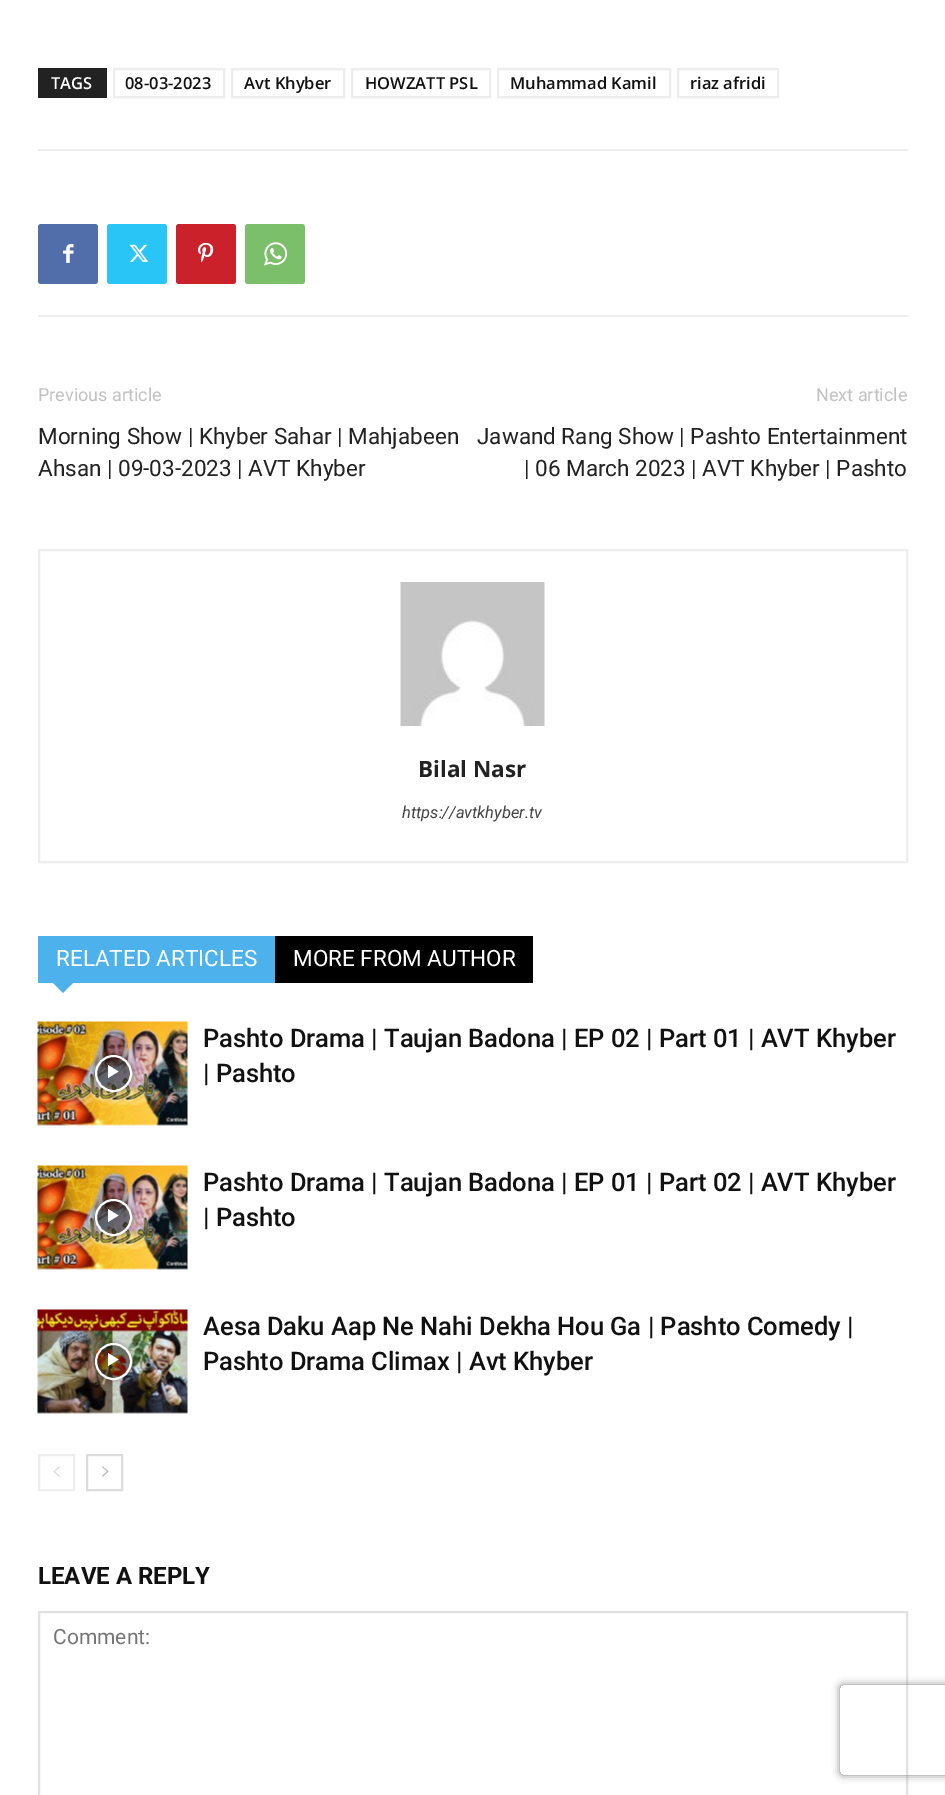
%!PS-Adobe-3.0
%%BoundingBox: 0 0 945 1795
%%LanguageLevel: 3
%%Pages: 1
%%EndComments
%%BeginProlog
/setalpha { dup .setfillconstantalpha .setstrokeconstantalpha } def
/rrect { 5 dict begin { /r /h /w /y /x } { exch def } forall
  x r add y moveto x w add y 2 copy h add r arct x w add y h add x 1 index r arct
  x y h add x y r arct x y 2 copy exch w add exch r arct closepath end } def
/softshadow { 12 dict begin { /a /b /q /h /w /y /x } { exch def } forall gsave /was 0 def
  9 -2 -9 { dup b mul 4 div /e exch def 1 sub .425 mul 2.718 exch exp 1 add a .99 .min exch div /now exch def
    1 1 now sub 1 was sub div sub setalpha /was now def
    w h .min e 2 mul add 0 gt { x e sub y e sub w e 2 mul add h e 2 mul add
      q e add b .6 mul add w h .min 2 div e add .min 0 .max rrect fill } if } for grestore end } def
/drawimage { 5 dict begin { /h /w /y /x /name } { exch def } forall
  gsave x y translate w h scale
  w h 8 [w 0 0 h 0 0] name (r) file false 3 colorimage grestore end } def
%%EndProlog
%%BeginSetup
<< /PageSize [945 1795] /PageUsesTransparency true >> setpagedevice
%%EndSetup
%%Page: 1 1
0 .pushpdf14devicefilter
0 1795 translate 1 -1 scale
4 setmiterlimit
1 setgray
0 0 945 1795 rectfill
0.133 setgray
38 68 69 30 rectfill
0.929 setgray
2 setlinewidth
114 69 110 28 rectstroke
232 69 112 28 rectstroke
352 69 138 28 rectstroke
498 69 172 28 rectstroke
678 69 100 28 rectstroke
38 149 870 2 rectfill
38 315 870 2 rectfill
0.318 0.431 0.671 setrgbcolor
38 224 60 60 3 rrect fill
(images/1.raw) 63 244 11 19 drawimage
0.161 0.773 0.965 setrgbcolor
107 224 60 60 3 rrect fill
(images/2.raw) 129 244 20 18 drawimage
0.792 0.129 0.165 setrgbcolor
176 224 60 60 3 rrect fill
(images/3.raw) 198 242 16 21 drawimage
0.482 0.749 0.416 setrgbcolor
245 224 60 60 3 rrect fill
(images/4.raw) 264 242 24 24 drawimage
0.929 setgray
39 550 868 312 rectstroke
(images/5.raw) 400 582 145 144 drawimage
0.302 0.698 0.925 setrgbcolor
38 936 237 47 rectfill
newpath 52.5 982.5 moveto 73.5 982.5 lineto 63 993 lineto closepath fill
0 setgray
275 936 258 47 rectfill
(images/6.raw) 37 1021 151 105 drawimage
gsave
newpath 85 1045 moveto 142 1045 lineto 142 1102 lineto 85 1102 lineto closepath 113.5 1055 moveto 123.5 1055 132 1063.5 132 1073.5 curveto 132 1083.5 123.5 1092 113.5 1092 curveto 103.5 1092 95 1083.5 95 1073.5 curveto 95 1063.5 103.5 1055 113.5 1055 curveto closepath eoclip newpath
95 1055 37 37 18.5 3 0.4 softshadow
grestore
0.48 setalpha
newpath 113.5 1073.5 17.5 0 360 arc closepath fill
1 setalpha
1 setgray
newpath 113.5 1073.5 17.5 0 360 arc closepath stroke
newpath 108 1065 moveto 108 1078 lineto 118.5 1071.5 lineto closepath fill
(images/7.raw) 37 1165 151 105 drawimage
gsave
newpath 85 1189 moveto 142 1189 lineto 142 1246 lineto 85 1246 lineto closepath 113.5 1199 moveto 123.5 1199 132 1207.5 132 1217.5 curveto 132 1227.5 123.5 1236 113.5 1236 curveto 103.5 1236 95 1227.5 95 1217.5 curveto 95 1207.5 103.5 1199 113.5 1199 curveto closepath eoclip newpath
0 setgray
95 1199 37 37 18.5 3 0.4 softshadow
grestore
0.48 setalpha
0 setgray
newpath 113.5 1217.5 17.5 0 360 arc closepath fill
1 setalpha
1 setgray
newpath 113.5 1217.5 17.5 0 360 arc closepath stroke
newpath 108 1209 moveto 108 1222 lineto 118.5 1215.5 lineto closepath fill
(images/8.raw) 37 1309 151 105 drawimage
gsave
newpath 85 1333 moveto 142 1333 lineto 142 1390 lineto 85 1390 lineto closepath 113.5 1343 moveto 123.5 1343 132 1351.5 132 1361.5 curveto 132 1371.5 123.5 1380 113.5 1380 curveto 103.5 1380 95 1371.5 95 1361.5 curveto 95 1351.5 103.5 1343 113.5 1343 curveto closepath eoclip newpath
0 setgray
95 1343 37 37 18.5 3 0.4 softshadow
grestore
0.48 setalpha
0 setgray
newpath 113.5 1361.5 17.5 0 360 arc closepath fill
1 setalpha
1 setgray
newpath 113.5 1361.5 17.5 0 360 arc closepath stroke
newpath 108 1353 moveto 108 1366 lineto 118.5 1359.5 lineto closepath fill
0.933 setgray
39 1455 35 35 rectstroke
(images/9.raw) 53 1466 7 11 drawimage
0.863 setgray
87 1455 35 35 rectstroke
(images/10.raw) 102 1466 7 11 drawimage
0.882 setgray
39 1612 868 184 rectstroke
gsave
newpath 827 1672 moveto 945 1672 lineto 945 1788 lineto 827 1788 lineto closepath 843 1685 moveto 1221 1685 lineto 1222.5 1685 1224 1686.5 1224 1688 curveto 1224 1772 lineto 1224 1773.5 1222.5 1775 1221 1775 curveto 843 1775 lineto 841.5 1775 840 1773.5 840 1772 curveto 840 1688 lineto 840 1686.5 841.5 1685 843 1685 curveto closepath eoclip newpath
0.502 setgray
840 1685 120 90 3 4 1 softshadow
grestore
/OpenSans-SemiBold [16.5 0 0 -16.5 0 0] selectfont
1 setgray
51 89 moveto (TAGS) show
0.067 setgray
125 89 moveto (08-03-2023) show
244 89 moveto (Avt Khyber) show
365 89 moveto (HOWZATT PSL) show
510 89 moveto (Muhammad Kamil) show
690 89 moveto (riaz afridi) show
/Roboto-Regular [18 0 0 -18 0 0] selectfont
0.757 setgray
38 401 moveto (Previous article) show
/Roboto-Regular [22.5 0 0 -22.5 0 0] selectfont
0.133 setgray
38 444 moveto (Morning Show | Khyber Sahar | Mahjabeen) show
38 476 moveto (Ahsan | 09-03-2023 | AVT Khyber) show
/Roboto-Regular [18 0 0 -18 0 0] selectfont
0.757 setgray
816 401 moveto (Next article) show
/Roboto-Regular [22.5 0 0 -22.5 0 0] selectfont
0.133 setgray
477 444 moveto (Jawand Rang Show | Pashto Entertainment) show
524 476 moveto (| 06 March 2023 | AVT Khyber | Pashto) show
/OpenSans-Bold [22.5 0 0 -22.5 0 0] selectfont
418 777 moveto (Bilal Nasr) show
/Roboto-Italic [16.5 0 0 -16.5 0 0] selectfont
0.267 setgray
402 818 moveto (https://avtkhyber.tv) show
/Roboto-Regular [22.5 0 0 -22.5 0 0] selectfont
1 setgray
56 966 moveto (RELATED ARTICLES) show
293 966 moveto (MORE FROM AUTHOR) show
/Roboto-Medium [25.5 0 0 -25.5 0 0] selectfont
0.067 setgray
203 1047 moveto (Pashto Drama | Taujan Badona | EP 02 | Part 01 | AVT Khyber) show
203 1082 moveto (| Pashto) show
203 1191 moveto (Pashto Drama | Taujan Badona | EP 01 | Part 02 | AVT Khyber) show
203 1226 moveto (| Pashto) show
203 1335 moveto (Aesa Daku Aap Ne Nahi Dekha Hou Ga | Pashto Comedy |) show
203 1370 moveto (Pashto Drama Climax | Avt Khyber) show
/Roboto-Bold [24 0 0 -24 0 0] selectfont
38 1584 moveto (LEAVE A REPLY) show
/Roboto-Regular [21 0 0 -21 0 0] selectfont
0.459 setgray
53 1644 moveto (Comment:) show
.poppdf14devicefilter showpage
%%EOF
